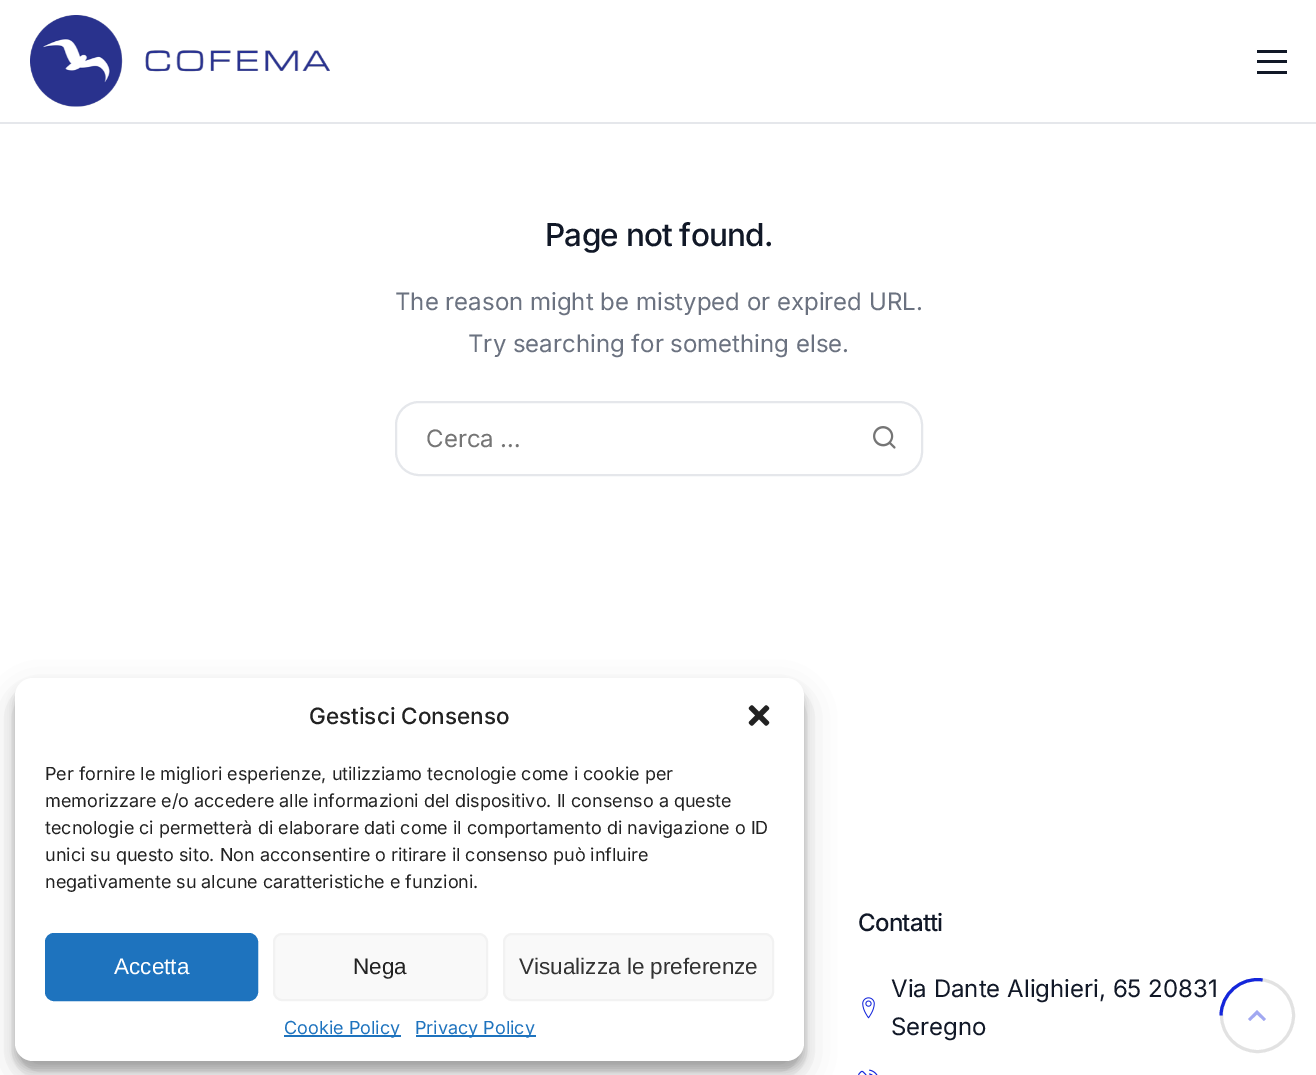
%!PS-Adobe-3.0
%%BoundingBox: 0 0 1316 1075
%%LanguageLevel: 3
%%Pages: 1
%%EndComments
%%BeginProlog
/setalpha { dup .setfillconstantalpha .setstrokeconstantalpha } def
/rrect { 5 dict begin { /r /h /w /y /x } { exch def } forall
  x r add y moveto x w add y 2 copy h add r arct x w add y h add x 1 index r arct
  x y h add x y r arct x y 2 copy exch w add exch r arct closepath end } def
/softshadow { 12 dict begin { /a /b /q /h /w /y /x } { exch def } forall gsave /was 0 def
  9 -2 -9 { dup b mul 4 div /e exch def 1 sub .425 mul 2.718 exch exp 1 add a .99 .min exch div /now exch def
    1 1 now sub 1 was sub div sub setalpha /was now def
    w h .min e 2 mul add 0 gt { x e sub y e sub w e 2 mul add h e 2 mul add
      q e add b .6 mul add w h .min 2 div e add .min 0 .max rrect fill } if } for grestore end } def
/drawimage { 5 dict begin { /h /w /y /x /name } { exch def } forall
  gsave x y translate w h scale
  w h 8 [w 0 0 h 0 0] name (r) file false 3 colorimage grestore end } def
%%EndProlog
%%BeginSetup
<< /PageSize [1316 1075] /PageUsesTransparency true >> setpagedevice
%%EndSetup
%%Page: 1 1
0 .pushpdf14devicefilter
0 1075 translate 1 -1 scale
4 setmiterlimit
1 setgray
0 0 1316 1075 rectfill
0.898 0.906 0.922 setrgbcolor
0 122 1316 2 rectfill
(images/1.raw) 30 15 300 92 drawimage
0.067 0.094 0.153 setrgbcolor
1257 50 30 3 rectfill
1257 60 30 3 rectfill
1257 71 30 3 rectfill
0.898 0.906 0.922 setrgbcolor
2 setlinewidth
396 402 526 73 23 rrect stroke
(images/2.raw) 873 426 23 23 drawimage
(images/3.raw) 862 997 13 22 drawimage
(images/4.raw) 858 1069 20 6 drawimage
0 setgray
15 687 789 383 18 4.5 0.23 softshadow
15 693 789 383 18 15 0.19 softshadow
1 setgray
15 678 789 383 18 rrect fill
(images/5.raw) 748 705 22 21 drawimage
0.118 0.451 0.745 setrgbcolor
46 934 211 66 8 rrect gsave fill grestore
stroke
0.976 setgray
274 934 213 66 8 rrect gsave fill grestore
0.949 setgray
stroke
0.976 setgray
504 934 269 66 8 rrect gsave fill grestore
0.949 setgray
stroke
0.118 0.451 0.745 setrgbcolor
284 1035 117 2 rectfill
416 1035 120 2 rectfill
0.886 setgray
3 setlinewidth
newpath 1257.5 1015.5 36 0 360 arc closepath stroke
0.631 0.659 0.945 setrgbcolor
newpath 1248 1019 moveto 1250 1021 lineto 1257 1014.5 lineto 1264 1021 lineto 1266 1019 lineto 1257 1010 lineto closepath fill
gsave
newpath 1219.5 1053 moveto 1219.5 978 lineto 1294.5 978 lineto 1294.5 1053 lineto closepath clip newpath
0.078 0.149 0.859 setrgbcolor
newpath 1221 1015.5 moveto 1221 994 1241 976.5 1262.5 980 curveto stroke
grestore
/Inter-Medium [31.5 0 0 -31.5 0 0] selectfont
0.067 0.094 0.153 setrgbcolor
545 246 moveto -0.8 0 (Page not found.) ashow
/Inter-Regular [24 0 0 -24 0 0] selectfont
0.42 0.447 0.502 setrgbcolor
395 310 moveto (The reason might be mistyped or expired URL.) show
468 352 moveto (Try searching for something else.) show
0.459 setgray
426 447 moveto (Cerca …) show
/Inter-Medium [24 0 0 -24 0 0] selectfont
0.067 0.094 0.153 setrgbcolor
858 931 moveto -0.75 0 (Contatti) ashow
/Inter-Regular [24 0 0 -24 0 0] selectfont
891 997 moveto (Via Dante Alighieri, 65 20831) show
891 1035 moveto (Seregno) show
/Inter-Medium [22.5 0 0 -22.5 0 0] selectfont
0.133 setgray
309 724 moveto (Gestisci Consenso) show
/Inter-Regular [18 0 0 -18 0 0] selectfont
45 780 moveto (Per fornire le migliori esperienze, utilizziamo tecnologie come i cookie per) show
45 807 moveto (memorizzare e/o accedere alle informazioni del dispositivo. Il consenso a queste) show
45 834 moveto (tecnologie ci permetterà di elaborare dati come il comportamento di navigazione o ID) show
45 861 moveto (unici su questo sito. Non acconsentire o ritirare il consenso può influire) show
45 888 moveto (negativamente su alcune caratteristiche e funzioni.) show
/LiberationSans-Regular [22.5 0 0 -22.5 0 0] selectfont
1 setgray
114 974 moveto (Accetta) show
0.133 setgray
353 974 moveto (Nega) show
0.2 setgray
519 974 moveto (Visualizza le preferenze) show
/Inter-Regular [18 0 0 -18 0 0] selectfont
0.118 0.451 0.745 setrgbcolor
284 1034 moveto (Cookie Policy) show
415 1034 moveto (Privacy Policy) show
.poppdf14devicefilter showpage
%%EOF
